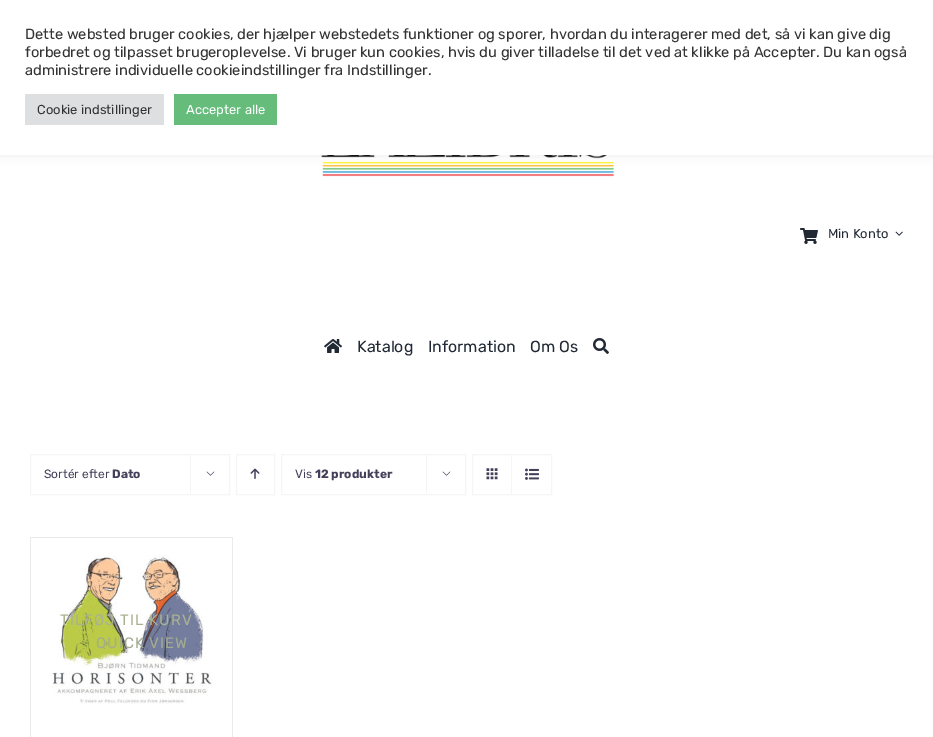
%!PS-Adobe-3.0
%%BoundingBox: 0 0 933 737
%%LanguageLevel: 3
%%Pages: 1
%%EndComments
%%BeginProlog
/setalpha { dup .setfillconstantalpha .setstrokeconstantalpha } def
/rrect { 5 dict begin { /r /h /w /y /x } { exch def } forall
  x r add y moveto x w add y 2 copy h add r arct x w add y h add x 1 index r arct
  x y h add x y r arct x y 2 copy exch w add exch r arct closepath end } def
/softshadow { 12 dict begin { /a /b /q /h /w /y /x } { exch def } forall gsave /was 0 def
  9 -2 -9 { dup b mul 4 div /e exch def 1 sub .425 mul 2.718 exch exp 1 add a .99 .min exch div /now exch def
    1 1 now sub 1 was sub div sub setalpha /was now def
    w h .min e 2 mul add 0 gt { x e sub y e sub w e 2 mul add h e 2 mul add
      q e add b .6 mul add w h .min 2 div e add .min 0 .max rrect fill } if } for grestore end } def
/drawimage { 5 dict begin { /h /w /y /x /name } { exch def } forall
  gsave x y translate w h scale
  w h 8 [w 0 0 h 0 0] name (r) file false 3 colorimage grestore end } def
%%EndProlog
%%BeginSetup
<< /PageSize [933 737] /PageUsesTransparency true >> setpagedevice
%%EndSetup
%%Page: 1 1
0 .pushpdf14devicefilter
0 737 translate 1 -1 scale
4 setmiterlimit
1 setgray
0 0 933 737 rectfill
(images/1.raw) 321 155 293 22 drawimage
0.675 0.671 0.671 setrgbcolor
0 -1 933 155 0 5 0.3 softshadow
1 setgray
0 0 933 155 rectfill
0.871 0.875 0.878 setrgbcolor
25 94 139 31 rectfill
0.396 0.737 0.482 setrgbcolor
174 94 103 31 rectfill
(images/2.raw) 800 228 18 16 drawimage
(images/3.raw) 895 231 8 5 drawimage
(images/4.raw) 324 339 18 14 drawimage
(images/5.raw) 593 338 16 16 drawimage
0.965 0.957 0.961 setrgbcolor
30.5 454.5 199 40 rectstroke
190 454 1 39 rectfill
(images/6.raw) 206 471 9 5 drawimage
236.5 454.5 38 40 rectstroke
(images/7.raw) 250 468 10 11 drawimage
281.5 454.5 184 40 rectstroke
426 454 1 39 rectfill
(images/6.raw) 442 471 9 5 drawimage
472.5 454.5 79 40 rectstroke
511 455 1 39 rectfill
(images/8.raw) 486 468 12 12 drawimage
(images/9.raw) 525 468 14 12 drawimage
0.922 0.918 0.918 setrgbcolor
30 537 203 1 rectfill
232 537 1 200 rectfill
30 537 1 200 rectfill
(images/10.raw) 52 555 161 149 drawimage
/Rubik-Regular [14.67 0 0 -14.67 0 0] selectfont
0.2 setgray
25 39 moveto (Dette websted bruger cookies, der hjælper webstedets funktioner og sporer, hvordan du interagerer med det, så vi kan give dig) show
25 57 moveto (forbedret og tilpasset brugeroplevelse. Vi bruger kun cookies, hvis du giver tilladelse til det ved at klikke på Accepter. Du kan også) show
25 75 moveto (administrere individuelle cookieindstillinger fra Indstillinger.) show
/Rubik-Regular [13 0 0 -13 0 0] selectfont
37 114 moveto (Cookie indstillinger) show
1 setgray
186 114 moveto (Accepter alle) show
0.129 0.161 0.204 setrgbcolor
828 238 moveto (Min Konto) show
/Rubik-Regular [16 0 0 -16 0 0] selectfont
357 352 moveto (Katalog) show
428 352 moveto (Information) show
530 352 moveto (Om Os) show
/Rubik-Regular [12 0 0 -12 0 0] selectfont
0.267 0.251 0.353 setrgbcolor
44 478 moveto (Sortér efter) show
/Rubik-Bold [12 0 0 -12 0 0] selectfont
112 478 moveto (Dato) show
/Rubik-Regular [12 0 0 -12 0 0] selectfont
295 478 moveto (Vis) show
/Rubik-Bold [12 0 0 -12 0 0] selectfont
315 478 moveto (12 produkter) show
/Rubik-Regular [15 0 0 -15 0 0] selectfont
0.671 0.698 0.569 setrgbcolor
60 625 moveto 1 0 (TILFØJ TIL KURV) ashow
0.639 0.675 0.561 setrgbcolor
96 648 moveto 1 0 (QUICK VIEW) ashow
.poppdf14devicefilter showpage
%%EOF
